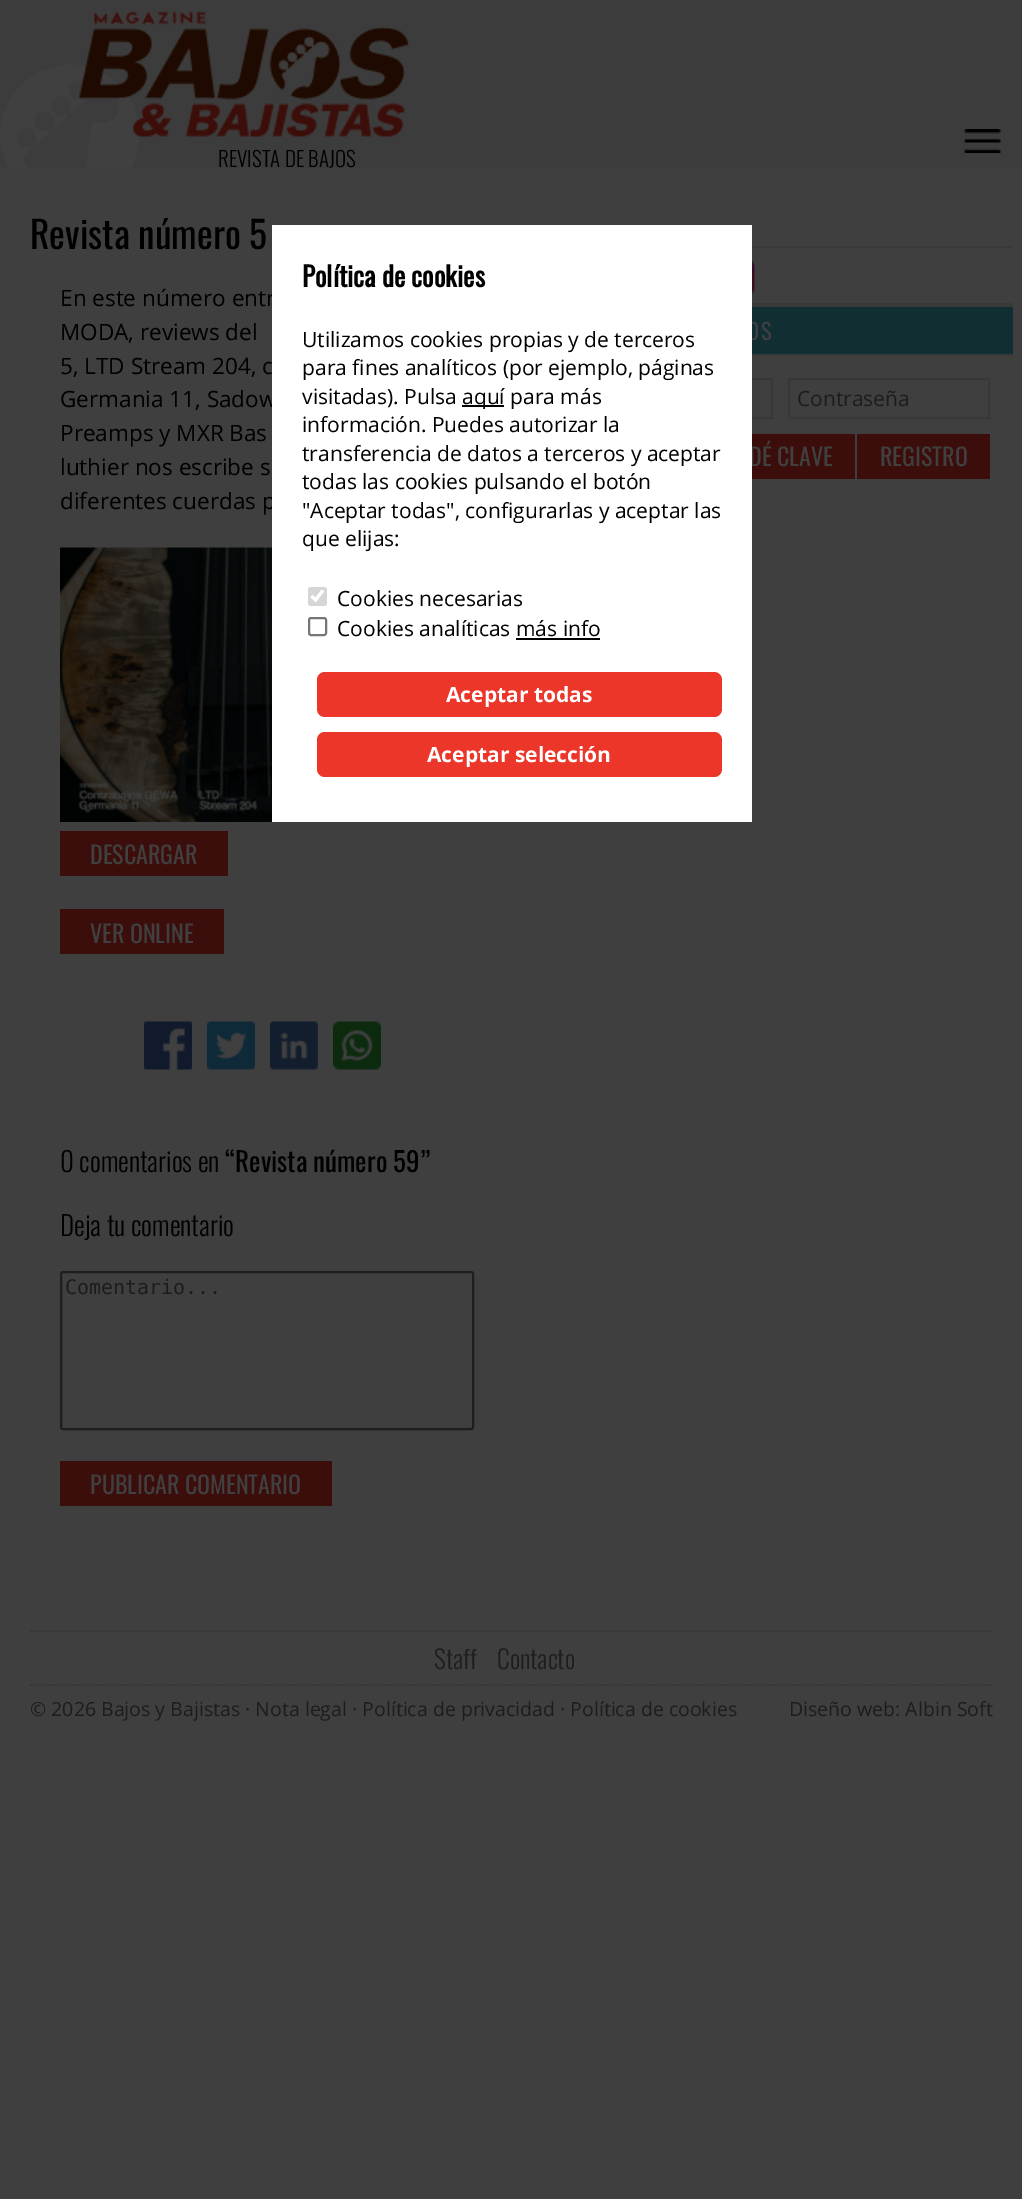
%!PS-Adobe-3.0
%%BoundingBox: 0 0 1022 2199
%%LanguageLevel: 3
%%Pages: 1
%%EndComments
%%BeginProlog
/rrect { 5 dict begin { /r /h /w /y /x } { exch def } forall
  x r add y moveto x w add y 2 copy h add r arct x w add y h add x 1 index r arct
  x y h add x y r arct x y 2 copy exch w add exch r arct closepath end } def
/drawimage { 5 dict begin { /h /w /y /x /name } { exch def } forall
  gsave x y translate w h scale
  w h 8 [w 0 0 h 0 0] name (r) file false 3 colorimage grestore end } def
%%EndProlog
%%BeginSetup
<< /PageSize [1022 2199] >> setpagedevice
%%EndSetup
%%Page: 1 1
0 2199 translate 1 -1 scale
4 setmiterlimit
0.247 setgray
0 0 1022 2199 rectfill
0.235 setgray
0 0 1022 168 rectfill
(images/1.raw) 0 64 140 104 drawimage
(images/2.raw) 79 11 330 126 drawimage
(images/3.raw) 964 129 37 24 drawimage
(images/4.raw) 60 547 212 275 drawimage
0.231 0.055 0.043 setrgbcolor
60 831 168 45 rectfill
60 909 164 45 rectfill
(images/5.raw) 144 1021 48 49 drawimage
(images/6.raw) 207 1021 48 49 drawimage
(images/7.raw) 270 1021 48 49 drawimage
(images/8.raw) 333 1021 48 49 drawimage
0.118 setgray
2 setlinewidth
61 1272 412 157 2 rrect stroke
0.231 0.055 0.043 setrgbcolor
60 1461 272 45 rectfill
0.224 setgray
752 246 261 2 rectfill
752 303 261 4 rectfill
(images/9.raw) 752 260 3 35 drawimage
0.067 0.18 0.196 setrgbcolor
752 307 261 47 rectfill
0.224 setgray
752 354 261 2 rectfill
0.22 setgray
571 379 201 39 rectstroke
789 379 200 39 rectstroke
0.231 0.055 0.043 setrgbcolor
752 434 103 45 rectfill
857 434 133 45 rectfill
0.2 setgray
1.5 setlinewidth
[1.5 1.5] 0 setdash
newpath 30 1631 moveto 993 1631 lineto stroke
newpath 30 1685 moveto 993 1685 lineto stroke
/Oswald-Light [21 0 0 -21 0 0] selectfont
0 setgray
218 167 moveto (REVISTA DE BAJOS) show
/Oswald-Regular [37.5 0 0 -37.5 0 0] selectfont
30 249 moveto (Revista número 5) show
/OpenSans-Regular [22.5 0 0 -22.5 0 0] selectfont
60 306 moveto (En este número entr) show
60 340 moveto (MODA, reviews del) show
60 374 moveto (5, LTD Stream 204, c) show
60 407 moveto (Germania 11, Sadow) show
60 441 moveto (Preamps y MXR Bas) show
60 475 moveto (luthier nos escribe s) show
60 509 moveto (diferentes cuerdas p) show
/Oswald-Regular [24 0 0 -24 0 0] selectfont
0.251 setgray
90 864 moveto (DESCARGAR) show
90 943 moveto (VER ONLINE) show
/Oswald-Light [27 0 0 -27 0 0] selectfont
0 setgray
60 1172 moveto (0 comentarios en) show
/Oswald-Regular [27 0 0 -27 0 0] selectfont
225 1172 moveto (“Revista número 59”) show
/Oswald-Light [27 0 0 -27 0 0] selectfont
60 1236 moveto (Deja tu comentario) show
/DejaVuSansMono-Regular [20 0 0 -20 0 0] selectfont
0.114 setgray
65 1294 moveto (Comentario...) show
/Oswald-Regular [24 0 0 -24 0 0] selectfont
0.251 setgray
90 1494 moveto (PUBLICAR COMENTARIO) show
/Oswald-Regular [22.5 0 0 -22.5 0 0] selectfont
747 340 moveto 2 0 (OS) ashow
/OpenSans-Regular [21 0 0 -21 0 0] selectfont
0.114 setgray
797 406 moveto (Contraseña) show
/Oswald-Regular [24 0 0 -24 0 0] selectfont
0.251 setgray
749 466 moveto (DÉ CLAVE) show
880 466 moveto (REGISTRO) show
1 setgray
272 225 480 597 rectfill
/Oswald-Bold [27 0 0 -27 0 0] selectfont
0 setgray
302 287 moveto (Política de cookies) show
/OpenSans-Regular [21 0 0 -21 0 0] selectfont
302 347 moveto (Utilizamos cookies propias y de terceros) show
302 375 moveto (para fines analíticos \(por ejemplo, páginas) show
302 404 moveto (visitadas\). Pulsa) show
462 405 42 2 rectfill
462 404 moveto (aquí para más) show
302 432 moveto (información. Puedes autorizar la) show
302 461 moveto (transferencia de datos a terceros y aceptar) show
302 489 moveto (todas las cookies pulsando el botón) show
302 518 moveto ("Aceptar todas", configurarlas y aceptar las) show
302 546 moveto (que elijas:) show
0.839 setgray
308 587 19 19 3 rrect fill
1 setgray
3.1 setlinewidth
[] 0 setdash
newpath 311.5 596 moveto 315.5 600 lineto 323 590.5 lineto stroke
0 setgray
337 606 moveto (Cookies necesarias) show
0.463 setgray
2 setlinewidth
309 618 17 17 2 rrect stroke
0 setgray
337 636 moveto (Cookies analíticas más info) show
516 638 84 2 rectfill
0.929 0.212 0.165 setrgbcolor
317 672 405 45 8 rrect fill
/OpenSans-Bold [21 0 0 -21 0 0] selectfont
1 setgray
446 702 moveto (Aceptar todas) show
0.929 0.212 0.165 setrgbcolor
317 732 405 45 8 rrect fill
1 setgray
427 762 moveto (Aceptar selección) show
/Oswald-Light [25.5 0 0 -25.5 0 0] selectfont
0.114 setgray
434 1669 moveto (Staff) show
497 1669 moveto (Contacto) show
/OpenSans-Regular [19.5 0 0 -19.5 0 0] selectfont
30 1716 moveto (© 2026 Bajos y Bajistas · Nota legal · Política de privacidad · Política de cookies) show
789 1716 moveto (Diseño web: Albin Soft) show
showpage
%%EOF
